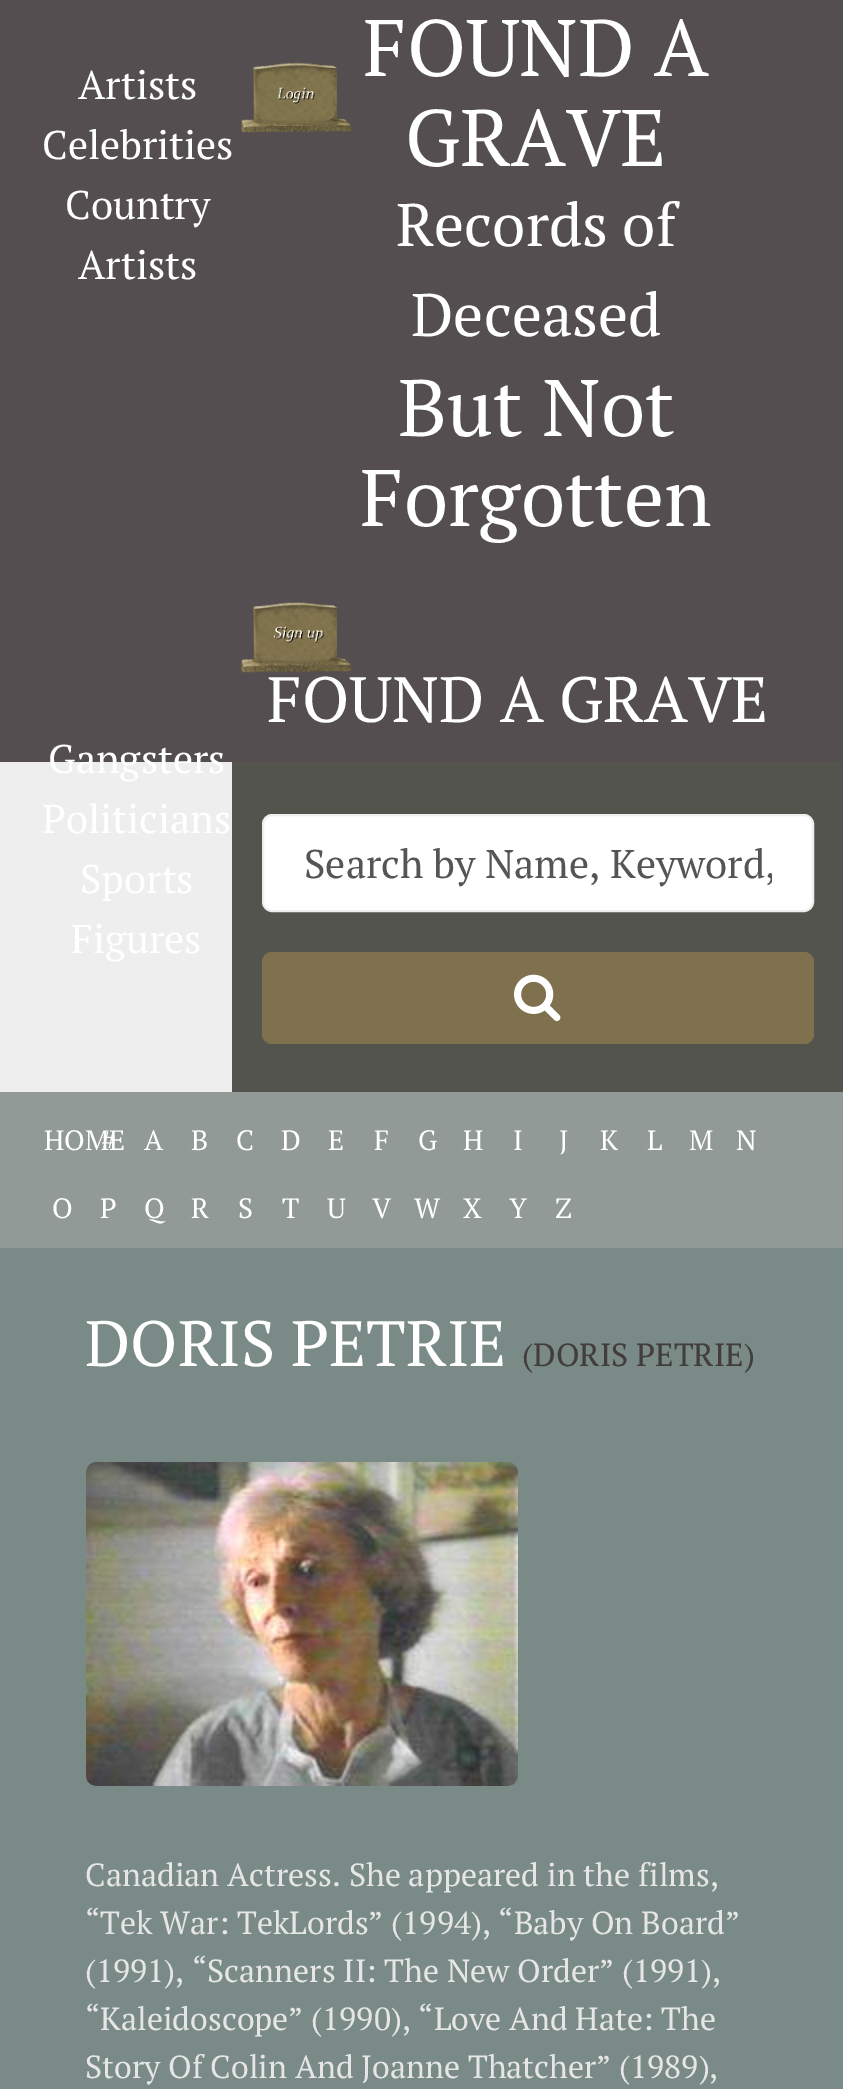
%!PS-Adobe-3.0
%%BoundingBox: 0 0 843 2089
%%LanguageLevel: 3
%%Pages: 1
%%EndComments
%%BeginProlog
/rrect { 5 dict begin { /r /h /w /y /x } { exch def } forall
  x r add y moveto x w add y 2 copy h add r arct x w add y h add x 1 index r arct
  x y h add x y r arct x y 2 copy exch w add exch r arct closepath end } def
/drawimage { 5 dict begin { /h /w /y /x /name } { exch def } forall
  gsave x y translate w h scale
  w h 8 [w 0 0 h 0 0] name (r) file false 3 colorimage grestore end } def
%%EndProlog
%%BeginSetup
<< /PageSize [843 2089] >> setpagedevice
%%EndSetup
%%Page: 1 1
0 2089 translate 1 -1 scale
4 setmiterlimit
0.933 setgray
0 0 843 2089 rectfill
0.329 0.306 0.314 setrgbcolor
0 0 843 762 rectfill
(images/1.raw) 241 62 111 71 drawimage
(images/2.raw) 241 602 111 71 drawimage
0.322 0.329 0.302 setrgbcolor
232 762 611 330 rectfill
1 setgray
263 815 550 96 9 rrect gsave fill grestore
0.933 setgray
2 setlinewidth
stroke
0.498 0.443 0.302 setrgbcolor
262 952 552 92 10 rrect fill
(images/3.raw) 514 974 47 48 drawimage
0.569 0.604 0.592 setrgbcolor
0 1092 843 156 rectfill
0.478 0.545 0.529 setrgbcolor
0 1248 843 841 rectfill
(images/4.raw) 86 1462 432 324 drawimage
/PTSerif-Regular [40 0 0 -40 0 0] selectfont
1 setgray
78 99 moveto (Artists) show
42 159 moveto (Celebrities) show
65 219 moveto (Country) show
78 279 moveto (Artists) show
/PTSerif-Regular [80 0 0 -80 0 0] selectfont
363 76 moveto (FOUND A) show
405 166 moveto (GRAVE) show
/PTSerif-Regular [60 0 0 -60 0 0] selectfont
396 246 moveto (Records of) show
411 336 moveto (Deceased) show
/PTSerif-Regular [80 0 0 -80 0 0] selectfont
398 436 moveto (But Not) show
360 526 moveto (Forgotten) show
/PTSerif-Regular [40 0 0 -40 0 0] selectfont
48 773 moveto (Gangsters) show
42 833 moveto (Politicians) show
80 893 moveto (Sports) show
71 953 moveto (Figures) show
/PTSerif-Regular [64 0 0 -64 0 0] selectfont
267 722 moveto (FOUND A GRAVE) show
gsave
304 836 468 54 rectclip
/PTSerif-Regular [40 0 0 -40 0 0] selectfont
0.333 setgray
304 878 moveto (Search by Name, Keyword,) show
grestore
/PTSerif-Regular [28 0 0 -28 0 0] selectfont
44 1150 moveto (HOME) show
144 1150 moveto (A) show
191 1150 moveto (B) show
236 1150 moveto (C) show
281 1150 moveto (D) show
328 1150 moveto (E) show
374 1150 moveto (F) show
418 1150 moveto (G) show
463 1150 moveto (H) show
513 1150 moveto (I) show
559 1150 moveto (J) show
600 1150 moveto (K) show
647 1150 moveto (L) show
689 1150 moveto (M) show
736 1150 moveto (N) show
101 1150 moveto (#) show
52 1218 moveto (O) show
100 1218 moveto (P) show
144 1218 moveto (Q) show
191 1218 moveto (R) show
238 1218 moveto (S) show
282 1218 moveto (T) show
327 1218 moveto (U) show
372 1218 moveto (V) show
414 1218 moveto (W) show
463 1218 moveto (X) show
509 1218 moveto (Y) show
555 1218 moveto (Z) show
/PTSerif-Regular [64 0 0 -64 0 0] selectfont
85 1366 moveto (DORIS PETRIE) show
/PTSerif-Regular [32 0 0 -32 0 0] selectfont
0.259 0.235 0.239 setrgbcolor
522 1366 moveto (\(DORIS PETRIE\)) show
0.902 setgray
85 1886 moveto (Canadian Actress. She appeared in the films,) show
85 1934 moveto (“Tek War: TekLords” \(1994\), “Baby On Board”) show
85 1982 moveto (\(1991\), “Scanners II: The New Order” \(1991\),) show
85 2030 moveto (“Kaleidoscope” \(1990\), “Love And Hate: The) show
85 2078 moveto (Story Of Colin And Joanne Thatcher” \(1989\),) show
showpage
%%EOF
